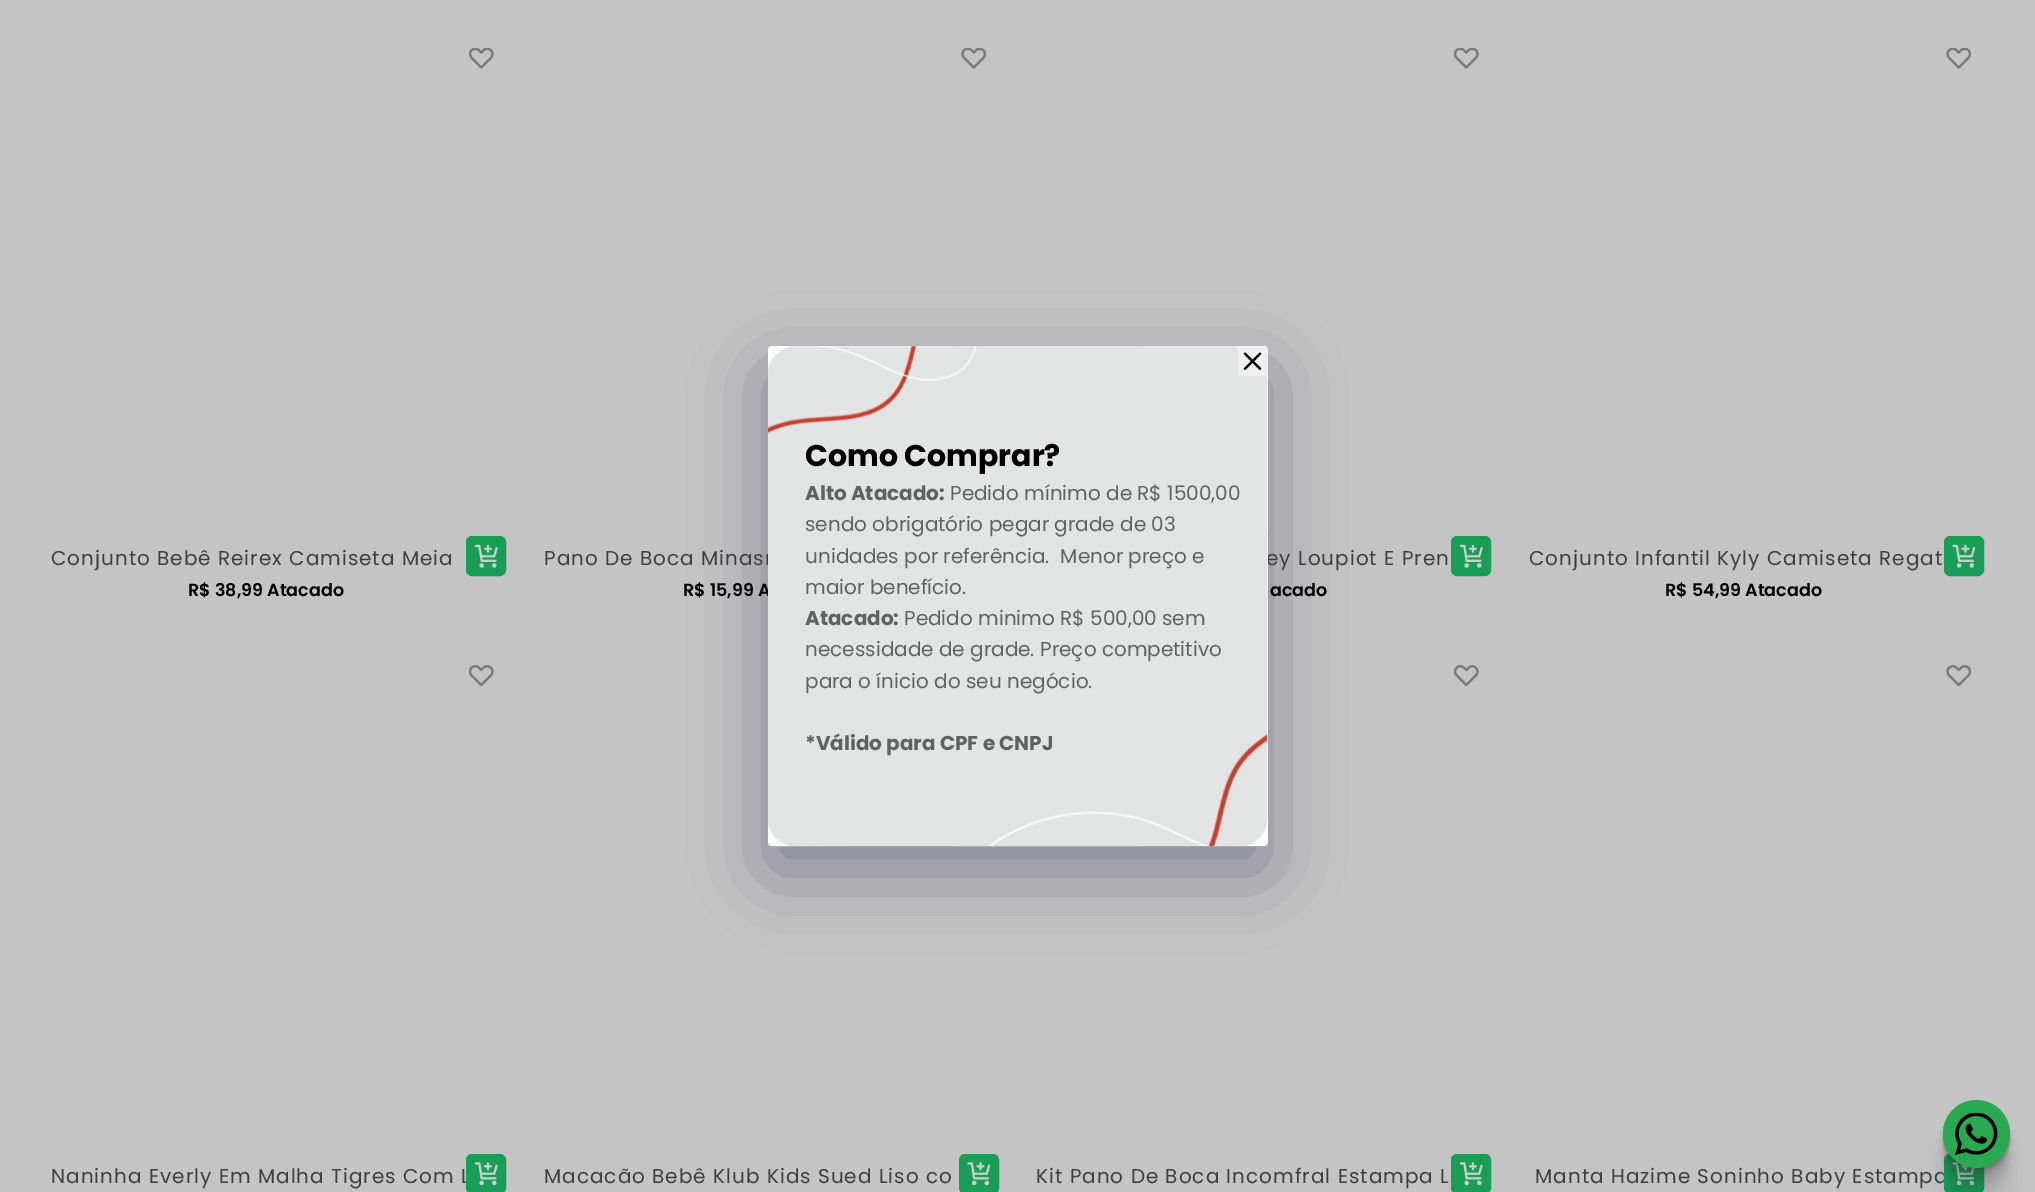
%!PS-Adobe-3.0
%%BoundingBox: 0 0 2035 1192
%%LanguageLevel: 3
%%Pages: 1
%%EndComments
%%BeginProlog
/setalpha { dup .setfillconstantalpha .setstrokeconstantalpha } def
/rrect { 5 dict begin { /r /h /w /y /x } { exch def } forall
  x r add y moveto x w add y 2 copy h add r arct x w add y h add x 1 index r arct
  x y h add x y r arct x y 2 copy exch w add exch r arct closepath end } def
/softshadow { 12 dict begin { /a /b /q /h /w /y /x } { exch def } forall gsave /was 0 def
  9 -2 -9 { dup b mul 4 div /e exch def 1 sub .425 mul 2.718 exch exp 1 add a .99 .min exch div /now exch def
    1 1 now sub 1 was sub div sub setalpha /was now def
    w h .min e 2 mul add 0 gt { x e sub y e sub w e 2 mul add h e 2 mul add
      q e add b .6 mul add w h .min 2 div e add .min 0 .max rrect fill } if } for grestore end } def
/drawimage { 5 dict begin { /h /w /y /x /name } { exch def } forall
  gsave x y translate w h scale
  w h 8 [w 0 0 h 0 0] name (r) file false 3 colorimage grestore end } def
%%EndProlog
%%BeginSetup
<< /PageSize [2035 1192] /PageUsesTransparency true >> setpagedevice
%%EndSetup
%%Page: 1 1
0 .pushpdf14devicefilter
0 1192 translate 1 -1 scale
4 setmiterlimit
0.769 setgray
0 0 2035 1192 rectfill
0.106 0.129 0.227 setrgbcolor
770 374 495 495 1 37.5 0.4 softshadow
(images/3.raw) 469 48 25 21 drawimage
0.094 0.62 0.337 setrgbcolor
466.5 536.5 39 39 5.5 rrect gsave fill grestore
stroke
(images/4.raw) 474 544 24 24 drawimage
(images/5.raw) 961 48 25 21 drawimage
(images/3.raw) 1454 48 25 21 drawimage
1451.5 536.5 39 39 5.5 rrect gsave fill grestore
stroke
(images/4.raw) 1459 544 24 24 drawimage
(images/5.raw) 1946 48 25 21 drawimage
1944.5 536.5 39 39 5.5 rrect gsave fill grestore
stroke
(images/6.raw) 1952 544 24 24 drawimage
(images/7.raw) 469 665 25 22 drawimage
959.5 1154.5 39 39 5.5 rrect gsave fill grestore
stroke
(images/9.raw) 967 1162 24 24 drawimage
(images/7.raw) 1454 665 25 22 drawimage
1451.5 1154.5 39 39 5.5 rrect gsave fill grestore
stroke
(images/8.raw) 1459 1162 24 24 drawimage
(images/10.raw) 1946 665 25 22 drawimage
/Poppins-Regular [20 0 0 -20 0 0] selectfont
0.243 setgray
51 565 moveto 1 0 (Conjunto Bebê Reirex Camiseta Meia) ashow
/Poppins-SemiBold [17.5 0 0 -17.5 0 0] selectfont
0 setgray
188 596 moveto (R$ 38,99 Atacado) show
/Poppins-Regular [20 0 0 -20 0 0] selectfont
0.243 setgray
544 565 moveto 1 0 (Pano De Boca Minasr) ashow
/Poppins-SemiBold [17.5 0 0 -17.5 0 0] selectfont
0 setgray
683 596 moveto (R$ 15,99 A) show
/Poppins-Regular [20 0 0 -20 0 0] selectfont
0.243 setgray
1266 565 moveto 1 0 (ey Loupiot E Pren) ashow
1 setgray
768 346 500 500 4 rrect fill
(images/1.raw) 768 346 500 501 drawimage
0.937 setgray
newpath 1238 346 moveto 1264 346 lineto 1266 346 1268 348 1268 350 curveto 1268 376 lineto 1238 376 lineto closepath fill
(images/2.raw) 1243 352 19 18 drawimage
/Poppins-Bold [20 0 0 -20 0 0] selectfont
0.38 setgray
805 750 moveto (*Válido para CPF e CNPJ) show
/Poppins-Regular [20 0 0 -20 0 0] selectfont
805 688 moveto (para o ínicio do seu negócio.) show
805 656 moveto (necessidade de grade. Preço competitivo) show
904 625 moveto (Pedido minimo R$ 500,00 sem) show
/Poppins-Bold [20 0 0 -20 0 0] selectfont
805 625 moveto (Atacado:) show
/Poppins-Regular [20 0 0 -20 0 0] selectfont
805 594 moveto (maior benefício.) show
805 563 moveto (unidades por referência.  Menor preço e) show
805 531 moveto (sendo obrigatório pegar grade de 03) show
950 500 moveto (Pedido mínimo de R$ 1500,00) show
/Poppins-Bold [20 0 0 -20 0 0] selectfont
805 500 moveto (Alto Atacado:) show
/Poppins-Bold [30 0 0 -30 0 0] selectfont
0 setgray
805 466 moveto (Como Comprar?) show
/Poppins-SemiBold [17.5 0 0 -17.5 0 0] selectfont
1270 596 moveto (acado) show
/Poppins-Regular [20 0 0 -20 0 0] selectfont
0.243 setgray
1529 565 moveto 1 0 (Conjunto Infantil Kyly Camiseta Regat) ashow
/Poppins-SemiBold [17.5 0 0 -17.5 0 0] selectfont
0 setgray
1665 596 moveto (R$ 54,99 Atacado) show
/Poppins-Regular [20 0 0 -20 0 0] selectfont
0.243 setgray
51 1183 moveto 1 0 (Naninha Everly Em Malha Tigres Com L) ashow
0.094 0.62 0.337 setrgbcolor
466.5 1154.5 39 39 5.5 rrect gsave fill grestore
stroke
(images/8.raw) 474 1162 24 24 drawimage
0.243 setgray
544 1183 moveto 1 0 (Macacão Bebê Klub Kids Sued Liso co) ashow
1036 1183 moveto 1 0 (Kit Pano De Boca Incomfral Estampa L) ashow
1535 1183 moveto 1 0 (Manta Hazime Soninho Baby Estampa) ashow
0.094 0.62 0.337 setrgbcolor
1944.5 1154.5 39 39 5.5 rrect gsave fill grestore
stroke
(images/11.raw) 1952 1162 23 24 drawimage
0 setgray
1943 1140 67 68 33.5 10 0.09 softshadow
1943 1120 67 68 33.5 5 0.09 softshadow
1943 1110 67 68 33.5 2.5 0.09 softshadow
1943 1105 67 68 33.5 1 0.09 softshadow
1943 1103 67 67 33.5 0.5 0.09 softshadow
0.165 0.663 0.322 setrgbcolor
1943 1100 67 68 33.5 rrect fill
(images/12.raw) 1955 1113 43 42 drawimage
.poppdf14devicefilter showpage
%%EOF
